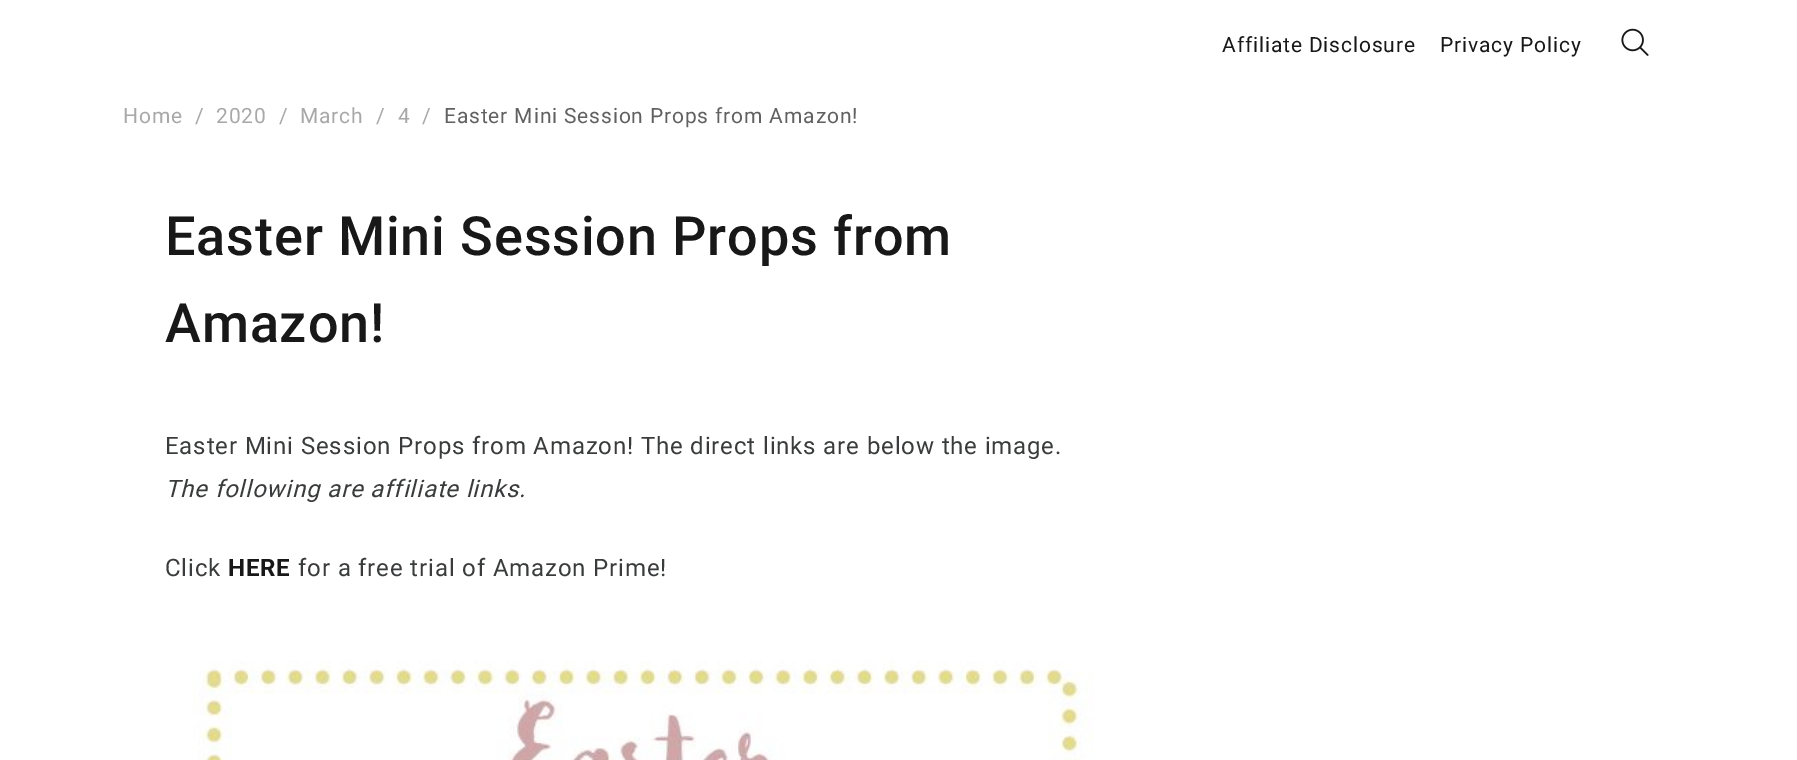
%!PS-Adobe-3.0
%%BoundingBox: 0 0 1797 760
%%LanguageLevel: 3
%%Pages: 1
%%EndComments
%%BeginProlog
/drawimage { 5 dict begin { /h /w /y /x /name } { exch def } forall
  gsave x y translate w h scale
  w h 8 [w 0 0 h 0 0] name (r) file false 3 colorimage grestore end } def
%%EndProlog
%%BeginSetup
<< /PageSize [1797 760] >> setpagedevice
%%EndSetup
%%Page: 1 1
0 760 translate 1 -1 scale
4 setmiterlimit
1 setgray
0 0 1797 760 rectfill
(images/1.raw) 1621 28 28 28 drawimage
(images/2.raw) 193 661 900 99 drawimage
/Roboto-Regular [21 0 0 -21 0 0] selectfont
0.094 setgray
1222 52 moveto 0.85 0 (Affiliate Disclosure) ashow
1440 52 moveto 0.85 0 (Privacy Policy) ashow
0.659 setgray
123 123 moveto 0.85 0 (Home) ashow
195 123 moveto 0.85 0 (/) ashow
216 123 moveto 0.85 0 (2020) ashow
279 123 moveto 0.85 0 (/) ashow
300 123 moveto 0.85 0 (March) ashow
376 123 moveto 0.85 0 (/) ashow
398 123 moveto 0.85 0 (4) ashow
422 123 moveto 0.85 0 (/) ashow
0.38 setgray
444 123 moveto 0.85 0 (Easter Mini Session Props from Amazon!) ashow
/Roboto-Medium [54 0 0 -54 0 0] selectfont
0.094 setgray
165 255 moveto 0.85 0 (Easter Mini Session Props from) ashow
165 342 moveto 0.85 0 (Amazon!) ashow
/Roboto-Regular [24 0 0 -24 0 0] selectfont
0.227 0.231 0.235 setrgbcolor
165 454 moveto 0.85 0 (Easter Mini Session Props from Amazon! The direct links are below the image.) ashow
/Roboto-Italic [24 0 0 -24 0 0] selectfont
165 497 moveto 0.85 0 (The following are affiliate links.) ashow
/Roboto-Regular [24 0 0 -24 0 0] selectfont
165 576 moveto 0.85 0 (Click) ashow
/Roboto-Bold [24 0 0 -24 0 0] selectfont
0.094 setgray
228 576 moveto 0.85 0 (HERE) ashow
/Roboto-Regular [24 0 0 -24 0 0] selectfont
0.227 0.231 0.235 setrgbcolor
298 576 moveto 0.85 0 (for a free trial of Amazon Prime!) ashow
showpage
%%EOF
